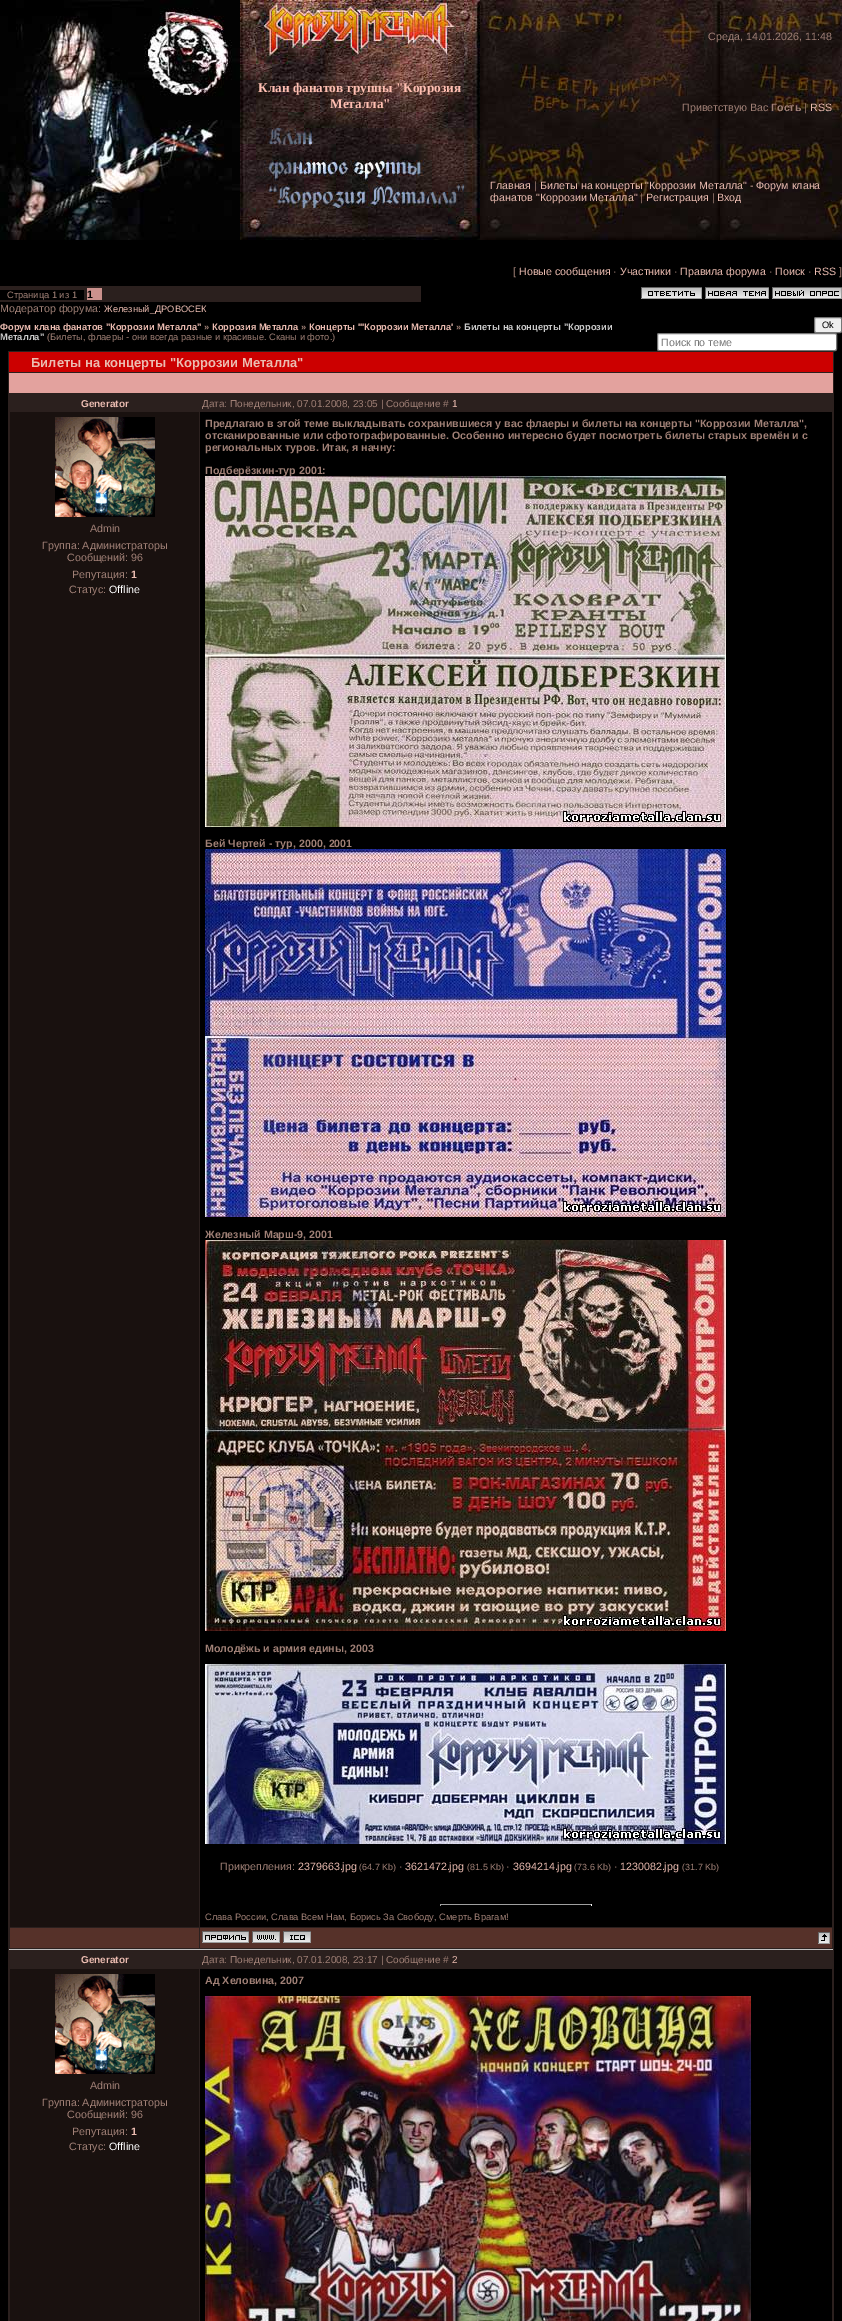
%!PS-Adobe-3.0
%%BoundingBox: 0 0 842 2321
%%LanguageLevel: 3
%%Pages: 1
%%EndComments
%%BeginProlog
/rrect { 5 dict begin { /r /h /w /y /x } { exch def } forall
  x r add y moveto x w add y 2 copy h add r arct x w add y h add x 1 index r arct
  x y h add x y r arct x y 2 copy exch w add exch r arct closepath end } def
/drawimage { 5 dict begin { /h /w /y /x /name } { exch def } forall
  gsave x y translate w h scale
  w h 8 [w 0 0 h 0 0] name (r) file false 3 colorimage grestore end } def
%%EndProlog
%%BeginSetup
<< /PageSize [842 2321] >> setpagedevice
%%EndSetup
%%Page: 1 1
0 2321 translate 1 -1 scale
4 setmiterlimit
0 setgray
0 0 842 2321 rectfill
(images/1.raw) 0 0 240 240 drawimage
(images/2.raw) 240 0 240 240 drawimage
(images/3.raw) 480 0 362 240 drawimage
0.169 0.125 0.118 setrgbcolor
0 286 421 16 rectfill
0 setgray
0 290 84 10 rectfill
0.796 0.569 0.553 setrgbcolor
87 288 15 12 rectfill
(images/4.raw) 641 287 61 12 drawimage
(images/5.raw) 705 287 64 12 drawimage
(images/6.raw) 772 287 70 12 drawimage
0.937 setgray
814.5 317.5 27 15 1.5 rrect gsave fill grestore
0.463 setgray
stroke
1 setgray
657.5 333.5 179 17 1.5 rrect gsave fill grestore
0.463 setgray
stroke
0.169 0.125 0.118 setrgbcolor
8 351 826 1970 rectfill
0.8 0 0 setrgbcolor
9 352 824 20 rectfill
0.89 0.635 0.62 setrgbcolor
9 373 824 20 rectfill
0.753 setgray
9 1949 824 1 rectfill
0.098 0.067 0.059 setrgbcolor
10 412 189 1515 rectfill
(images/7.raw) 55 417 100 100 drawimage
0 setgray
200 412 632 1515 rectfill
(images/11.raw) 205 1664 521 180 drawimage
0.624 setgray
440 1904 152 1 rectfill
0.933 setgray
591 1904 1 2 rectfill
0.624 setgray
440 1904 1 2 rectfill
0.337 0.192 0.161 setrgbcolor
10 1928 189 20 rectfill
200 1928 632 20 rectfill
(images/12.raw) 202 1931 47 12 drawimage
(images/13.raw) 252 1931 28 12 drawimage
(images/14.raw) 283 1931 28 12 drawimage
(images/15.raw) 818 1932 12 12 drawimage
0 setgray
200 1969 632 352 rectfill
(images/16.raw) 205 1996 546 325 drawimage
0.098 0.067 0.059 setrgbcolor
10 1969 189 352 rectfill
(images/7.raw) 55 1974 100 100 drawimage
/LiberationSerif-Bold [13.3 0 0 -13.3 0 0] selectfont
1 0.749 0.698 setrgbcolor
258 92 moveto (Клан фанатов группы "Коррозия) show
330 108 moveto (Металла") show
/LiberationSans-Regular [10.67 0 0 -10.67 0 0] selectfont
0.627 0.502 0.463 setrgbcolor
708 40 moveto (Среда, 14.01.2026, 11:48) show
682 111 moveto (Приветствую Вас) show
/LiberationSans-Bold [10.67 0 0 -10.67 0 0] selectfont
771 111 moveto (Гость) show
/LiberationSans-Regular [10.67 0 0 -10.67 0 0] selectfont
804 111 moveto (|) show
0.922 0.737 0.694 setrgbcolor
810 111 moveto (RSS) show
490 189 moveto (Главная) show
0.627 0.502 0.463 setrgbcolor
534 189 moveto (|) show
0.922 0.737 0.694 setrgbcolor
540 189 moveto (Билеты на концерты "Коррозии Металла" - Форум клана) show
490 201 moveto (фанатов "Коррозии Металла") show
0.627 0.502 0.463 setrgbcolor
640 201 moveto (|) show
0.922 0.737 0.694 setrgbcolor
646 201 moveto (Регистрация) show
0.627 0.502 0.463 setrgbcolor
712 201 moveto (|) show
0.922 0.737 0.694 setrgbcolor
717 201 moveto (Вход) show
0.627 0.502 0.463 setrgbcolor
513 275 moveto ([) show
0.922 0.737 0.694 setrgbcolor
519 275 moveto (Новые сообщения) show
0.627 0.502 0.463 setrgbcolor
613 275 moveto (·) show
0.922 0.737 0.694 setrgbcolor
620 275 moveto (Участники) show
0.627 0.502 0.463 setrgbcolor
674 275 moveto (·) show
0.922 0.737 0.694 setrgbcolor
680 275 moveto (Правила форума) show
0.627 0.502 0.463 setrgbcolor
769 275 moveto (·) show
0.922 0.737 0.694 setrgbcolor
775 275 moveto (Поиск) show
0.627 0.502 0.463 setrgbcolor
808 275 moveto (·) show
0.922 0.737 0.694 setrgbcolor
814 275 moveto (RSS) show
0.627 0.502 0.463 setrgbcolor
839 275 moveto (]) show
/LiberationSans-Regular [9.3 0 0 -9.3 0 0] selectfont
7 298 moveto (Страница 1 из 1) show
/LiberationSans-Bold [10.67 0 0 -10.67 0 0] selectfont
0 setgray
87 298 moveto (1) show
/LiberationSans-Regular [10.67 0 0 -10.67 0 0] selectfont
0.627 0.502 0.463 setrgbcolor
0 312 moveto (Модератор форума:) show
/LiberationSans-Regular [9.3 0 0 -9.3 0 0] selectfont
0.922 0.737 0.694 setrgbcolor
104 312 moveto (Железный_ДРОВОСЕК) show
/LiberationSans-Bold [9.3 0 0 -9.3 0 0] selectfont
0 330 moveto (Форум клана фанатов "Коррозии Металла") show
0.627 0.502 0.463 setrgbcolor
204 330 moveto (») show
0.922 0.737 0.694 setrgbcolor
212 330 moveto (Коррозия Металла) show
0.627 0.502 0.463 setrgbcolor
301 330 moveto (») show
0.922 0.737 0.694 setrgbcolor
309 330 moveto (Концерты '''Коррозии Металла') show
0.627 0.502 0.463 setrgbcolor
456 330 moveto (») show
0.8 setgray
464 330 moveto (Билеты на концерты "Коррозии) show
0 340 moveto (Металла") show
/LiberationSans-Regular [9.3 0 0 -9.3 0 0] selectfont
0.627 0.502 0.463 setrgbcolor
47 340 moveto (\(Билеты, флаеры - они всегда разные и красивые. Сканы и фото.\)) show
0 setgray
822 328 moveto (Ok) show
/LiberationSans-Regular [10.67 0 0 -10.67 0 0] selectfont
0.459 setgray
661 346 moveto (Поиск по теме) show
/LiberationSans-Bold [13 0 0 -13 0 0] selectfont
0.922 0.737 0.694 setrgbcolor
31 367 moveto (Билеты на концерты "Коррозии Металла") show
/LiberationSans-Bold [10 0 0 -10 0 0] selectfont
81 407 moveto (Generator) show
/LiberationSans-Regular [10 0 0 -10 0 0] selectfont
0.627 0.502 0.463 setrgbcolor
202 407 moveto (Дата: Понедельник, 07.01.2008, 23:05 | Сообщение #) show
0.922 0.737 0.694 setrgbcolor
452 407 moveto (1) show
/LiberationSans-Regular [10.67 0 0 -10.67 0 0] selectfont
0.627 0.502 0.463 setrgbcolor
90 532 moveto (Admin) show
42 549 moveto (Группа: Администраторы) show
67 561 moveto (Сообщений: 96) show
72 578 moveto (Репутация:) show
/LiberationSans-Bold [10.67 0 0 -10.67 0 0] selectfont
0.922 0.737 0.694 setrgbcolor
131 578 moveto (1) show
/LiberationSans-Regular [10.67 0 0 -10.67 0 0] selectfont
0.627 0.502 0.463 setrgbcolor
69 593 moveto (Статус:) show
1 setgray
109 593 moveto (Offline) show
/LiberationSans-Bold [10.67 0 0 -10.67 0 0] selectfont
0.627 0.502 0.463 setrgbcolor
205 427 moveto (Предлагаю в этой теме выкладывать сохранившиеся у вас флаеры и билеты на концерты "Коррозии Металла",) show
205 439 moveto (отсканированные или сфотографированные. Особенно интересно будет посмотреть билеты старых времён и с) show
205 451 moveto (региональных туров. Итак, я начну:) show
205 474 moveto (Подберёзкин-тур 2001:) show
(images/8.raw) 205 476 521 351 drawimage
205 847 moveto (Бей Чертей - тур, 2000, 2001) show
(images/9.raw) 205 849 521 368 drawimage
205 1238 moveto (Железный Марш-9, 2001) show
(images/10.raw) 205 1240 521 391 drawimage
205 1652 moveto (Молодёжь и армия едины, 2003) show
/LiberationSans-Regular [10.67 0 0 -10.67 0 0] selectfont
220 1870 moveto (Прикрепления:) show
0.922 0.737 0.694 setrgbcolor
298 1870 moveto (2379663.jpg) show
/LiberationSans-Regular [9 0 0 -9 0 0] selectfont
0.627 0.502 0.463 setrgbcolor
359 1870 moveto (\(64.7 Kb\)) show
/LiberationSans-Regular [10.67 0 0 -10.67 0 0] selectfont
399 1870 moveto (·) show
0.922 0.737 0.694 setrgbcolor
405 1870 moveto (3621472.jpg) show
/LiberationSans-Regular [9 0 0 -9 0 0] selectfont
0.627 0.502 0.463 setrgbcolor
467 1870 moveto (\(81.5 Kb\)) show
/LiberationSans-Regular [10.67 0 0 -10.67 0 0] selectfont
506 1870 moveto (·) show
0.922 0.737 0.694 setrgbcolor
513 1870 moveto (3694214.jpg) show
/LiberationSans-Regular [9 0 0 -9 0 0] selectfont
0.627 0.502 0.463 setrgbcolor
574 1870 moveto (\(73.6 Kb\)) show
/LiberationSans-Regular [10.67 0 0 -10.67 0 0] selectfont
614 1870 moveto (·) show
0.922 0.737 0.694 setrgbcolor
620 1870 moveto (1230082.jpg) show
/LiberationSans-Regular [9 0 0 -9 0 0] selectfont
0.627 0.502 0.463 setrgbcolor
682 1870 moveto (\(31.7 Kb\)) show
/LiberationSans-Regular [9.3 0 0 -9.3 0 0] selectfont
205 1920 moveto (Слава России, Слава Всем Нам, Борись За Свободу, Смерть Врагам!) show
/LiberationSans-Bold [10 0 0 -10 0 0] selectfont
0.922 0.737 0.694 setrgbcolor
81 1963 moveto (Generator) show
/LiberationSans-Regular [10 0 0 -10 0 0] selectfont
0.627 0.502 0.463 setrgbcolor
202 1963 moveto (Дата: Понедельник, 07.01.2008, 23:17 | Сообщение #) show
0.922 0.737 0.694 setrgbcolor
452 1963 moveto (2) show
/LiberationSans-Bold [10.67 0 0 -10.67 0 0] selectfont
0.627 0.502 0.463 setrgbcolor
205 1984 moveto (Ад Хеловина, 2007) show
/LiberationSans-Regular [10.67 0 0 -10.67 0 0] selectfont
90 2089 moveto (Admin) show
42 2106 moveto (Группа: Администраторы) show
67 2118 moveto (Сообщений: 96) show
72 2135 moveto (Репутация:) show
/LiberationSans-Bold [10.67 0 0 -10.67 0 0] selectfont
0.922 0.737 0.694 setrgbcolor
131 2135 moveto (1) show
/LiberationSans-Regular [10.67 0 0 -10.67 0 0] selectfont
0.627 0.502 0.463 setrgbcolor
69 2150 moveto (Статус:) show
1 setgray
109 2150 moveto (Offline) show
showpage
%%EOF
